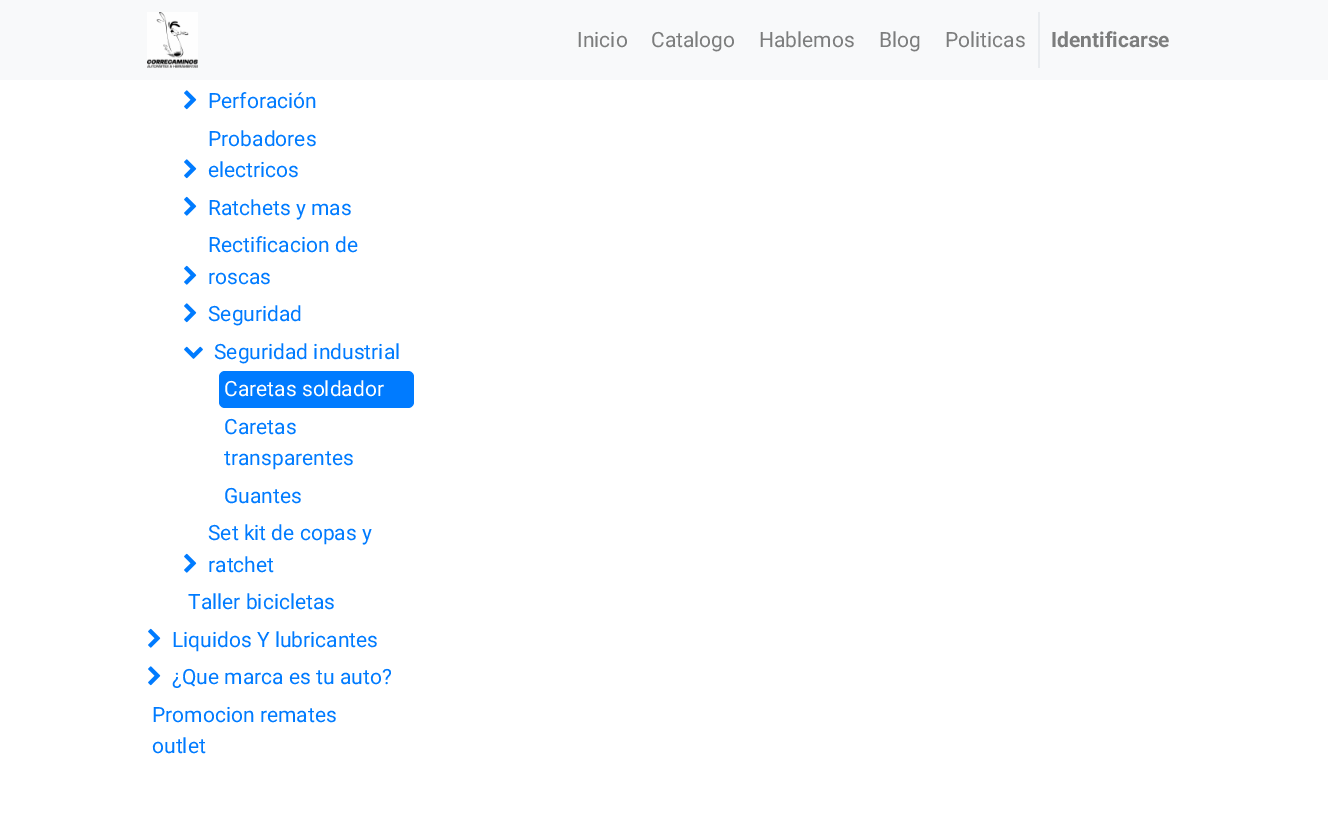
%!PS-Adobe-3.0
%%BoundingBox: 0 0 1328 826
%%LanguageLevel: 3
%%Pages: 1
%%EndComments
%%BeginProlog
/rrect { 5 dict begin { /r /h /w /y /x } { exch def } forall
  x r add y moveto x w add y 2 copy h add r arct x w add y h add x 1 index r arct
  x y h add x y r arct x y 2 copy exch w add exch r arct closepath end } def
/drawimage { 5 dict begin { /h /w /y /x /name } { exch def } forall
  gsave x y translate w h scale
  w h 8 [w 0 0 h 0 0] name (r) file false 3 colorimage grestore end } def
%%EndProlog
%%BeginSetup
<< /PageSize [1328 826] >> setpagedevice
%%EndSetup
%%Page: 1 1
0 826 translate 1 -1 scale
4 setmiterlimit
1 setgray
0 0 1328 826 rectfill
0.973 0.976 0.98 setrgbcolor
0 0 1328 80 rectfill
(images/1.raw) 147 12 51 56 drawimage
0.914 0.925 0.937 setrgbcolor
1038 12 2 56 rectfill
(images/2.raw) 184 90 13 20 drawimage
(images/2.raw) 184 159 13 20 drawimage
(images/3.raw) 184 196 13 20 drawimage
(images/3.raw) 184 265 13 20 drawimage
(images/2.raw) 184 303 13 20 drawimage
(images/4.raw) 184 346 19 13 drawimage
0 0.482 1 setrgbcolor
219 371 195 37 6 rrect fill
(images/3.raw) 184 553 13 20 drawimage
(images/3.raw) 148 628 13 20 drawimage
(images/2.raw) 148 666 13 20 drawimage
/Roboto-Regular [21 0 0 -21 0 0] selectfont
0.486 0.49 0.49 setrgbcolor
577 47 moveto (Inicio) show
651 47 moveto (Catalogo) show
759 47 moveto (Hablemos) show
879 47 moveto (Blog) show
945 47 moveto (Politicas) show
/Roboto-Bold [21 0 0 -21 0 0] selectfont
1051 47 moveto (Identificarse) show
/Roboto-Regular [21 0 0 -21 0 0] selectfont
0 0.482 1 setrgbcolor
208 108 moveto (Perforación) show
208 146 moveto (Probadores) show
208 177 moveto (electricos) show
208 215 moveto (Ratchets y mas) show
208 252 moveto (Rectificacion de) show
208 284 moveto (roscas) show
208 321 moveto (Seguridad) show
214 359 moveto (Seguridad industrial) show
1 setgray
224 396 moveto (Caretas soldador) show
0 0.482 1 setrgbcolor
224 434 moveto (Caretas) show
224 465 moveto (transparentes) show
224 503 moveto (Guantes) show
208 540 moveto (Set kit de copas y) show
208 572 moveto (ratchet) show
188 609 moveto (Taller bicicletas) show
172 647 moveto (Liquidos Y lubricantes) show
172 684 moveto (¿Que marca es tu auto?) show
152 722 moveto (Promocion remates) show
152 753 moveto (outlet) show
showpage
%%EOF
